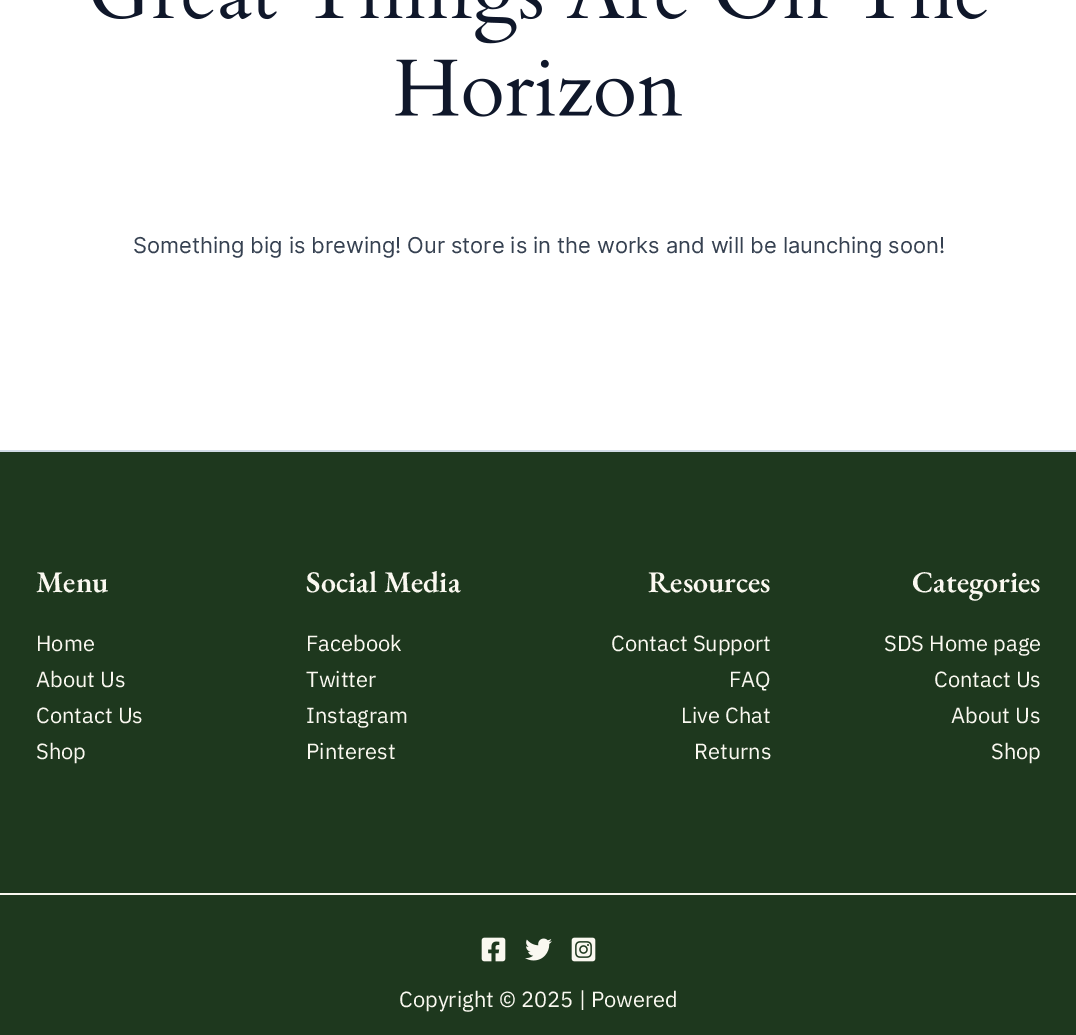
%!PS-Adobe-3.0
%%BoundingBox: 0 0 1076 1035
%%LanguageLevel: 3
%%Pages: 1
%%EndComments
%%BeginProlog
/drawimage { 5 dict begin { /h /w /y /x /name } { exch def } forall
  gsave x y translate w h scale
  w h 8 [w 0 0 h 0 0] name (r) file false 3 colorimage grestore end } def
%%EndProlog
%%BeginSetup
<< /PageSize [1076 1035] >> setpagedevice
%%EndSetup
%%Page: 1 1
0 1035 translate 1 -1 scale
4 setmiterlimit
1 setgray
0 0 1076 1035 rectfill
(images/1.raw) 93 0 894 44 drawimage
(images/2.raw) 395 59 287 58 drawimage
0.118 0.22 0.118 setrgbcolor
0 452 1076 441 rectfill
0.82 0.855 0.898 setrgbcolor
0 450 1076 2 rectfill
0.118 0.22 0.118 setrgbcolor
0 895 1076 140 rectfill
0.98 0.973 0.941 setrgbcolor
0 893 1076 2 rectfill
(images/3.raw) 481 937 25 25 drawimage
(images/4.raw) 525 938 27 23 drawimage
(images/5.raw) 571 937 25 25 drawimage
/Inter-Regular [21.9 0 0 -21.9 0 0] selectfont
0.212 0.255 0.318 setrgbcolor
133 253 moveto (Something big is brewing! Our store is in the works and will be launching soon!) show
/EBGaramond-SemiBold [30 0 0 -30 0 0] selectfont
0.98 0.973 0.941 setrgbcolor
36 592 moveto (Menu) show
/IBMPlexSans-Regular [21.9 0 0 -21.9 0 0] selectfont
36 651 moveto (Home) show
36 687 moveto (About Us) show
36 723 moveto (Contact Us) show
36 759 moveto (Shop) show
/EBGaramond-SemiBold [30 0 0 -30 0 0] selectfont
306 592 moveto (Social Media) show
/IBMPlexSans-Regular [21.9 0 0 -21.9 0 0] selectfont
306 651 moveto (Facebook) show
306 687 moveto (Twitter) show
306 723 moveto (Instagram) show
306 759 moveto (Pinterest) show
/EBGaramond-SemiBold [30 0 0 -30 0 0] selectfont
648 592 moveto (Resources) show
/IBMPlexSans-Regular [21.9 0 0 -21.9 0 0] selectfont
611 651 moveto (Contact Support) show
729 687 moveto (FAQ) show
681 723 moveto (Live Chat) show
694 759 moveto (Returns) show
/EBGaramond-SemiBold [30 0 0 -30 0 0] selectfont
912 592 moveto (Categories) show
/IBMPlexSans-Regular [21.9 0 0 -21.9 0 0] selectfont
884 651 moveto (SDS Home page) show
934 687 moveto (Contact Us) show
951 723 moveto (About Us) show
991 759 moveto (Shop) show
399 1007 moveto (Copyright © 2025 | Powered) show
showpage
%%EOF
